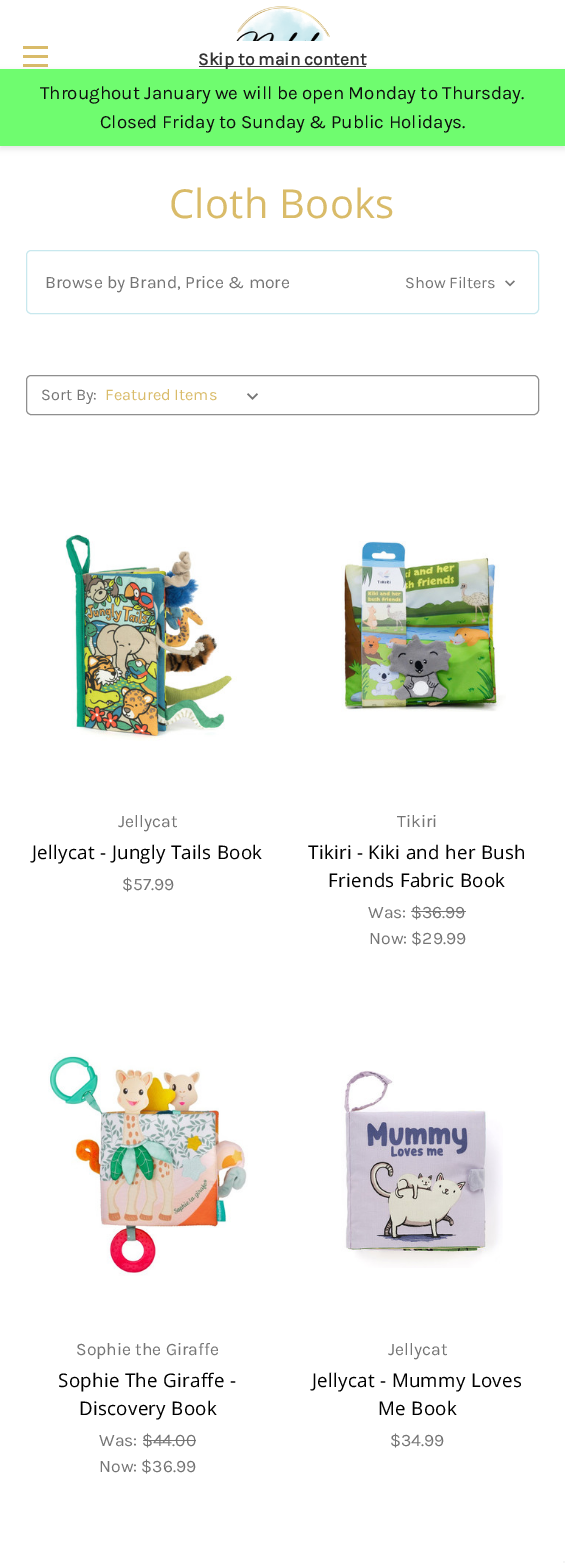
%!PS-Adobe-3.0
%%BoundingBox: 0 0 565 1563
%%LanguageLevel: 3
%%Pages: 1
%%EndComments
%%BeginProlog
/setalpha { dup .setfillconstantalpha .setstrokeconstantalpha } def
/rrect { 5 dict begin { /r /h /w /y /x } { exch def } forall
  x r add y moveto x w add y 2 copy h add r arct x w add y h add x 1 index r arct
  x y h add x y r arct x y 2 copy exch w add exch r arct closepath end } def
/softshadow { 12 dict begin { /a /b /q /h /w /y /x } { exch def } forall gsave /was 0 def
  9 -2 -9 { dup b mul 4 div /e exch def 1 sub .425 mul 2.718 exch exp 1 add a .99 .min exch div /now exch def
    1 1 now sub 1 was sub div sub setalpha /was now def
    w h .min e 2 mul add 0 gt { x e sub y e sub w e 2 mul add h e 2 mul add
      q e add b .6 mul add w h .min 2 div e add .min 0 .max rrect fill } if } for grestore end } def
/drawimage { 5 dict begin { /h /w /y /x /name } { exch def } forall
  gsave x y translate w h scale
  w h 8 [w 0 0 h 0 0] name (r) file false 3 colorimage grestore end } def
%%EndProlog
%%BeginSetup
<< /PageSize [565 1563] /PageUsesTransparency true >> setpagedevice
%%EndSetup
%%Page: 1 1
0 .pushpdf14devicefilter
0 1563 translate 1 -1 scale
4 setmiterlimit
1 setgray
0 0 565 1563 rectfill
(images/1.raw) 236 6 94 35 drawimage
0.851 0.733 0.412 setrgbcolor
23 55 25 3 rectfill
23 46 25 3 rectfill
23 64 25 3 rectfill
0.2 setgray
199 66 167 1 rectfill
0 setgray
0 71 565 78 0 3 0.1 softshadow
0.784 0.91 0.933 setrgbcolor
26.5 250.5 512 63 4.5 rrect stroke
(images/2.raw) 505 280 10 7 drawimage
0.561 setgray
26.5 375.5 512 39 4.5 rrect stroke
(images/3.raw) 247 393 11 7 drawimage
(images/4.raw) 65 534 172 207 drawimage
(images/5.raw) 341 541 165 171 drawimage
0.459 setgray
411 911 55 1 rectfill
(images/6.raw) 48 1053 200 223 drawimage
143 1440 53 1 rectfill
(images/7.raw) 341 1070 162 198 drawimage
0.961 setgray
563 1561 2 2 rectfill
/Karla-Bold [17.5 0 0 -17.5 0 0] selectfont
0.2 setgray
198 65 moveto (Skip to main content) show
0.435 0.988 0.435 setrgbcolor
0 69 565 77 rectfill
/Karla-Regular [18.75 0 0 -18.75 0 0] selectfont
0.055 setgray
40 99 moveto (Throughout January we will be open Monday to Thursday.) show
100 128 moveto (Closed Friday to Sunday & Public Holidays.) show
/OpenSans-Regular [40 0 0 -40 0 0] selectfont
0.851 0.733 0.412 setrgbcolor
169 218 moveto 0.3 0 (Cloth Books) ashow
/Karla-Regular [17.5 0 0 -17.5 0 0] selectfont
0.459 setgray
45 288 moveto (Browse by Brand, Price & more) show
/Karla-Regular [16.25 0 0 -16.25 0 0] selectfont
405 288 moveto (Show Filters) show
41 400 moveto (Sort By:) show
0.851 0.733 0.412 setrgbcolor
105 400 moveto (Featured Items) show
/Karla-Regular [17.5 0 0 -17.5 0 0] selectfont
0.459 setgray
118 827 moveto (Jellycat) show
/OpenSans-Regular [18.75 0 0 -18.75 0 0] selectfont
0 setgray
32 859 moveto 0.3 0 (Jellycat - Jungly Tails Book) ashow
/Karla-Regular [17.5 0 0 -17.5 0 0] selectfont
0.459 setgray
122 890 moveto ($57.99) show
397 827 moveto (Tikiri) show
/OpenSans-Regular [18.75 0 0 -18.75 0 0] selectfont
0 setgray
308 859 moveto 0.3 0 (Tikiri - Kiki and her Bush) ashow
328 887 moveto 0.3 0 (Friends Fabric Book) ashow
/Karla-Regular [17.5 0 0 -17.5 0 0] selectfont
0.459 setgray
368 918 moveto (Was: $36.99) show
369 944 moveto (Now: $29.99) show
76 1355 moveto (Sophie the Giraffe) show
/OpenSans-Regular [18.75 0 0 -18.75 0 0] selectfont
0 setgray
58 1387 moveto 0.3 0 (Sophie The Giraffe -) ashow
79 1415 moveto 0.3 0 (Discovery Book) ashow
/Karla-Regular [17.5 0 0 -17.5 0 0] selectfont
0.459 setgray
99 1446 moveto (Was: $44.00) show
99 1472 moveto (Now: $36.99) show
388 1355 moveto (Jellycat) show
/OpenSans-Regular [18.75 0 0 -18.75 0 0] selectfont
0 setgray
312 1387 moveto 0.3 0 (Jellycat - Mummy Loves) ashow
378 1415 moveto 0.3 0 (Me Book) ashow
/Karla-Regular [17.5 0 0 -17.5 0 0] selectfont
0.459 setgray
390 1446 moveto ($34.99) show
.poppdf14devicefilter showpage
%%EOF
